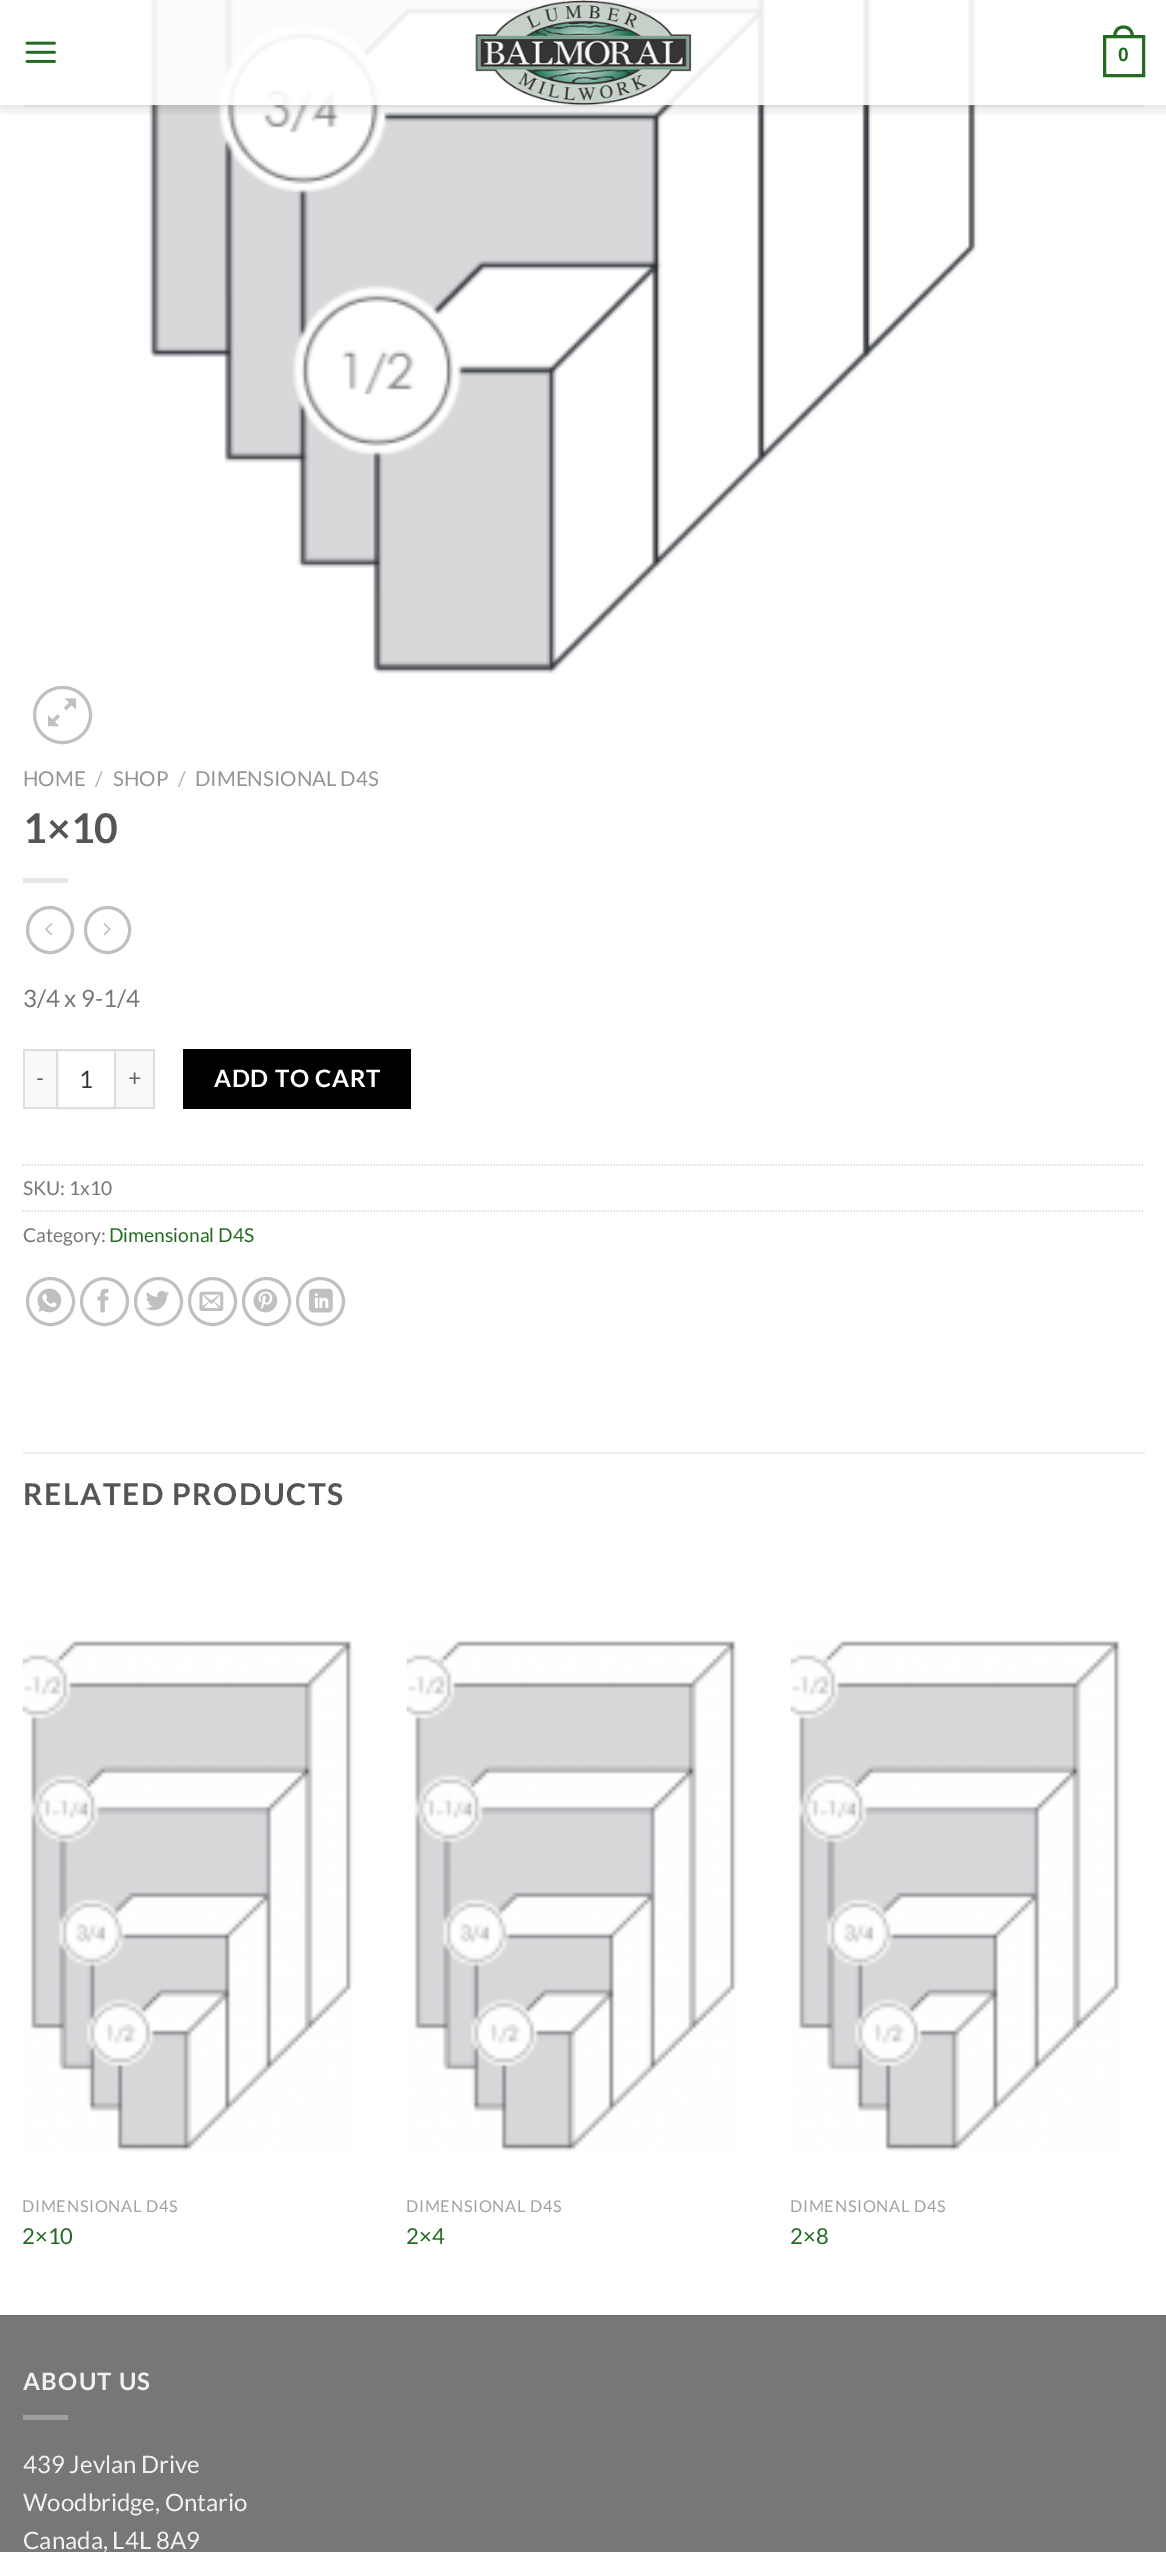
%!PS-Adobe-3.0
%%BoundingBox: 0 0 1166 2552
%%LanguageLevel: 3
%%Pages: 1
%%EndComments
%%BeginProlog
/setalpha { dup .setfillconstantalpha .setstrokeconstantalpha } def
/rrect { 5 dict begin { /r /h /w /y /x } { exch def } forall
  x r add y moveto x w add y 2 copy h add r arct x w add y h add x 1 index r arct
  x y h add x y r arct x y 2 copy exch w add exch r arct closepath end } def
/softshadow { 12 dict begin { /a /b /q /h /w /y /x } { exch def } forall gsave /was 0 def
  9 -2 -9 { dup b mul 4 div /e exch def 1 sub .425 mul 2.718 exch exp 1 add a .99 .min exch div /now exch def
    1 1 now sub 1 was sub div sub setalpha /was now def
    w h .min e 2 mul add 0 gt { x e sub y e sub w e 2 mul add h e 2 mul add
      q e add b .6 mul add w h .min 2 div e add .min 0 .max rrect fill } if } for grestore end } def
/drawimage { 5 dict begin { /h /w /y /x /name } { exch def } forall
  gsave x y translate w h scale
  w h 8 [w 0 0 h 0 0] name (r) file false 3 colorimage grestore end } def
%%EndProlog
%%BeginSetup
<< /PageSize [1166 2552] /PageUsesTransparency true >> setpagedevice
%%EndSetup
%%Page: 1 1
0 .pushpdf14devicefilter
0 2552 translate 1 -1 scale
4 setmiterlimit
1 setgray
0 0 1166 2552 rectfill
(images/3.raw) 149 0 828 674 drawimage
gsave
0 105 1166 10 rectclip
0 setgray
2 2 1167 105 0 7.5 0.15 softshadow
grestore
0.9 setalpha
149 0 828 105 rectfill
1 setalpha
(images/1.raw) 25 41 31 22 drawimage
(images/2.raw) 475 0 217 105 drawimage
0.141 0.42 0.129 setrgbcolor
3 setlinewidth
1104.5 36.5 39 39 rectstroke
newpath 1123.5 25.5 moveto 1130.5 25.5 1134 31 1134 37.5 curveto 1113 37.5 lineto 1113 31 1116.5 25.5 1123.5 25.5 curveto closepath 1123.5 28.5 moveto 1129 28.5 1131 33 1131 37.5 curveto 1116 37.5 lineto 1116 33 1118 28.5 1123.5 28.5 curveto closepath eofill
0.1 setalpha
0.467 setgray
23 105 1122 2 rectfill
1 setalpha
0.753 setgray
34.5 687.5 56 55 27.5 rrect stroke
(images/4.raw) 48 698 28 29 drawimage
0.902 setgray
23 878 45 5 rectfill
0.753 setgray
newpath 50 930 22.5 0 360 arc closepath stroke
(images/5.raw) 45 923 8 13 drawimage
85.5 907.5 44 45 22 rrect stroke
(images/6.raw) 103 923 8 13 drawimage
0.976 setgray
25 1051 31 56 rectfill
0.867 setgray
23 1049 33 2 rectfill
23 1107 33 2 rectfill
23 1049 2 60 rectfill
2 setlinewidth
57 1050 58 58 rectstroke
0.976 setgray
116 1051 37 56 rectfill
0.867 setgray
116 1049 39 2 rectfill
153 1049 2 60 rectfill
116 1107 39 2 rectfill
0 setgray
183 1049 228 60 rectfill
0.867 setgray
1.5 setlinewidth
[1.5 1.5] 0 setdash
newpath 22.5 1165 moveto 1144.5 1165 lineto stroke
newpath 22.5 1211 moveto 1144.5 1211 lineto stroke
0.753 setgray
3 setlinewidth
[] 0 setdash
newpath 50.5 1301.5 23 0 360 arc closepath stroke
(images/7.raw) 37 1288 25 25 drawimage
newpath 104.5 1301.5 23 0 360 arc closepath stroke
(images/8.raw) 97 1288 12 25 drawimage
newpath 158.5 1301.5 23 0 360 arc closepath stroke
(images/9.raw) 146 1291 23 20 drawimage
newpath 212.5 1301.5 23 0 360 arc closepath stroke
(images/10.raw) 199 1291 25 20 drawimage
newpath 266.5 1301.5 23 0 360 arc closepath stroke
(images/11.raw) 253 1288 25 25 drawimage
newpath 320.5 1301.5 23 0 360 arc closepath stroke
(images/12.raw) 309 1288 24 25 drawimage
0.925 setgray
23 1452 1122 2 rectfill
(images/13.raw) 22 1640 331 512 drawimage
(images/14.raw) 406 1640 331 512 drawimage
(images/13.raw) 790 1640 331 512 drawimage
0.467 setgray
0 2317 1166 235 rectfill
0.443 setgray
0 2315 1166 2 rectfill
0.627 setgray
23 2415 45 5 rectfill
/LiberationSans-Bold [19.25 0 0 -19.25 0 0] selectfont
0.141 0.42 0.129 setrgbcolor
1118 61 moveto (0) show
/Lato-Regular [20.5 0 0 -20.5 0 0] selectfont
0.58 setgray
23 786 moveto (HOME) show
0.698 setgray
95 786 moveto (/) show
0.58 setgray
113 786 moveto (SHOP) show
0.698 setgray
178 786 moveto (/) show
0.58 setgray
195 786 moveto (DIMENSIONAL D4S) show
/Lato-Bold [41 0 0 -41 0 0] selectfont
0.333 setgray
23 843 moveto (1×10) show
/Lato-Regular [24 0 0 -24 0 0] selectfont
0.467 setgray
23 1007 moveto (3/4 x 9-1/4) show
/Lato-Regular [23 0 0 -23 0 0] selectfont
0.4 setgray
36 1086 moveto 1 0 (-) ashow
/Lato-Regular [24 0 0 -24 0 0] selectfont
0.2 setgray
79 1088 moveto (1) show
/Lato-Regular [23 0 0 -23 0 0] selectfont
0.4 setgray
128 1086 moveto 1 0 (+) ashow
/Lato-Bold [24 0 0 -24 0 0] selectfont
1 setgray
214 1087 moveto 0.75 0 (ADD TO CART) ashow
/Lato-Regular [19.25 0 0 -19.25 0 0] selectfont
0.467 setgray
23 1195 moveto (SKU: 1x10) show
23 1242 moveto (Category:) show
0.141 0.42 0.129 setrgbcolor
109 1242 moveto (Dimensional D4S) show
/Lato-Bold [30 0 0 -30 0 0] selectfont
0.333 setgray
23 1505 moveto 1.5 0 (RELATED PRODUCTS) ashow
/Lato-Regular [16.25 0 0 -16.25 0 0] selectfont
0.627 setgray
22 2212 moveto 0.75 0 (DIMENSIONAL D4S) ashow
/Lato-Regular [22 0 0 -22 0 0] selectfont
0.141 0.42 0.129 setrgbcolor
22 2244 moveto (2×10) show
/Lato-Regular [16.25 0 0 -16.25 0 0] selectfont
0.627 setgray
406 2212 moveto 0.75 0 (DIMENSIONAL D4S) ashow
/Lato-Regular [22 0 0 -22 0 0] selectfont
0.141 0.42 0.129 setrgbcolor
406 2244 moveto (2×4) show
/Lato-Regular [16.25 0 0 -16.25 0 0] selectfont
0.627 setgray
790 2212 moveto 0.75 0 (DIMENSIONAL D4S) ashow
/Lato-Regular [22 0 0 -22 0 0] selectfont
0.141 0.42 0.129 setrgbcolor
790 2244 moveto (2×8) show
/Lato-Bold [24 0 0 -24 0 0] selectfont
0.945 setgray
23 2390 moveto 1.25 0 (ABOUT US) ashow
/Lato-Regular [24 0 0 -24 0 0] selectfont
23 2473 moveto (439 Jevlan Drive) show
23 2511 moveto (Woodbridge, Ontario) show
23 2549 moveto (Canada, L4L 8A9) show
.poppdf14devicefilter showpage
%%EOF
